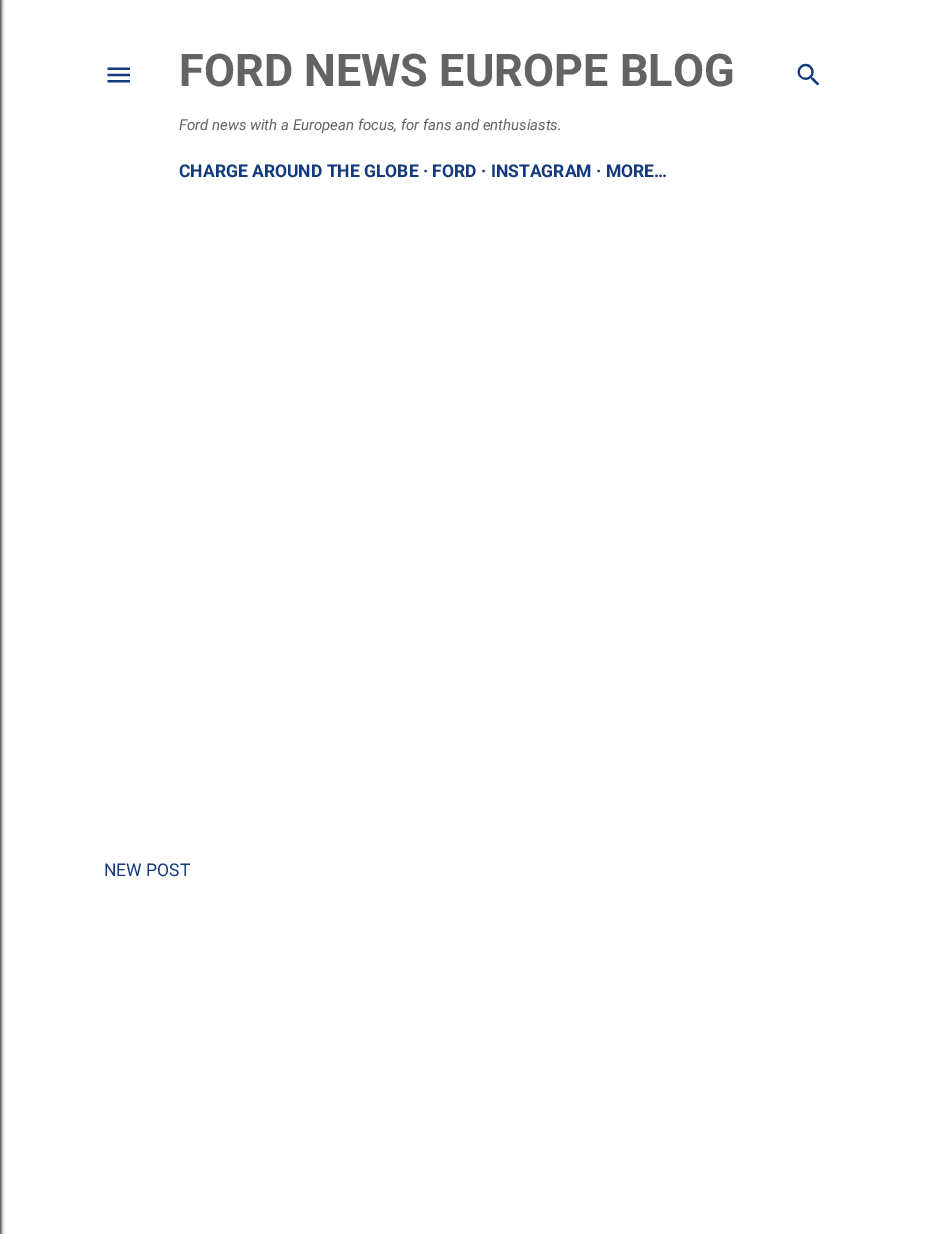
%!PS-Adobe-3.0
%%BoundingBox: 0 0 927 1234
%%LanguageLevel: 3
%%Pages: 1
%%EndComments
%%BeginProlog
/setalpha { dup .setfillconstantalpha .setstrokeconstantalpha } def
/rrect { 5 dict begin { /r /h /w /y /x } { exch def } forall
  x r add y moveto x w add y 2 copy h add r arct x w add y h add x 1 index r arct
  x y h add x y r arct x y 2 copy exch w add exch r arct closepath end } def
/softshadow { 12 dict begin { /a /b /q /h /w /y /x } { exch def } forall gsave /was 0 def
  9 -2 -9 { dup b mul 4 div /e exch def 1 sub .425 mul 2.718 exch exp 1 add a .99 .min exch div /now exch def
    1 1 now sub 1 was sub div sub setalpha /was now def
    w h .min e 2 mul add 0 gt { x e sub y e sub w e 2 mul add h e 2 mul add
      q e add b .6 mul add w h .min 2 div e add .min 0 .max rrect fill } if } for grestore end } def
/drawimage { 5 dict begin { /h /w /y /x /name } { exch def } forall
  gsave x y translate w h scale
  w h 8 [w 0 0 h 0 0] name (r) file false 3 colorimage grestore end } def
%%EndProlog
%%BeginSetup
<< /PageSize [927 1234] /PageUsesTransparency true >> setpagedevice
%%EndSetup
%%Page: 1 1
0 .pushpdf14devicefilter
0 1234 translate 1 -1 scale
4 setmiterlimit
1 setgray
0 0 927 1234 rectfill
0 setgray
-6 0 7 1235 0 2 1 softshadow
(images/1.raw) 107 67 23 16 drawimage
(images/2.raw) 797 63 23 23 drawimage
/Roboto-Bold [45 0 0 -45 0 0] selectfont
0.388 setgray
179 86 moveto (FORD NEWS EUROPE BLOG) show
/Roboto-Italic [15 0 0 -15 0 0] selectfont
179 130 moveto (Ford news with a European focus, for fans and enthusiasts.) show
/Roboto-Bold [17.5 0 0 -17.5 0 0] selectfont
0.075 0.227 0.486 setrgbcolor
179 177 moveto (CHARGE AROUND THE GLOBE · FORD · INSTAGRAM · MORE…) show
/Roboto-Regular [17.5 0 0 -17.5 0 0] selectfont
104 876 moveto (NEW POST) show
.poppdf14devicefilter showpage
%%EOF
